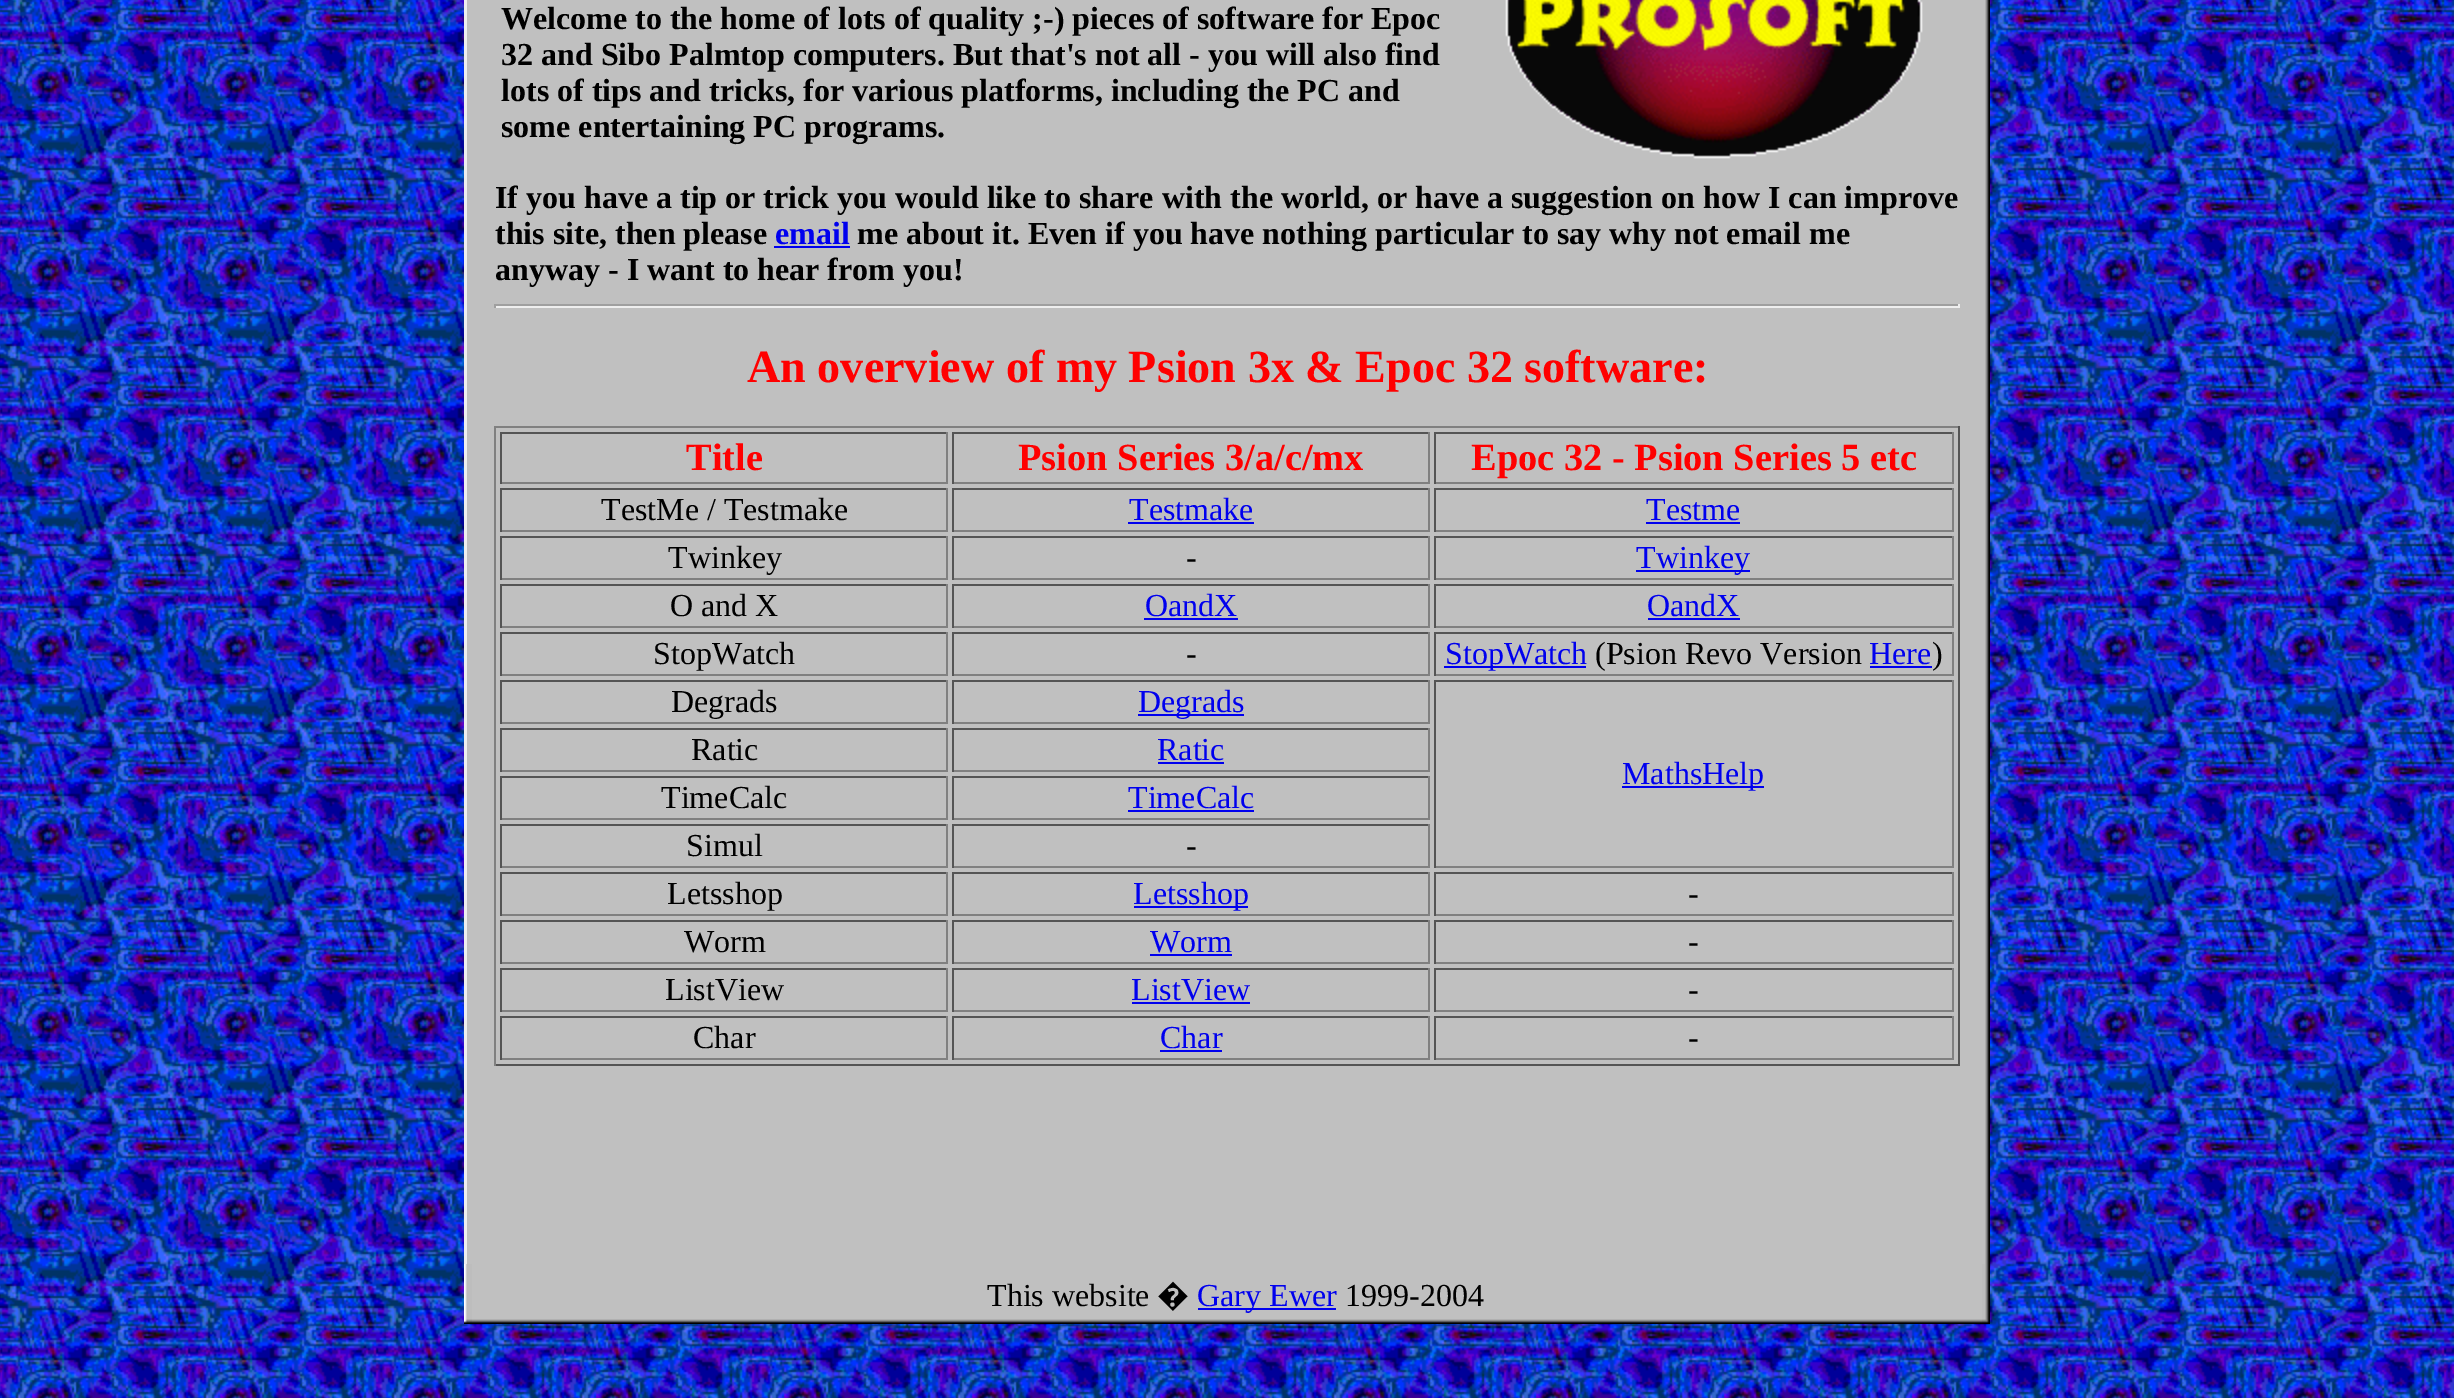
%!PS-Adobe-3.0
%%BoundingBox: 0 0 2454 1398
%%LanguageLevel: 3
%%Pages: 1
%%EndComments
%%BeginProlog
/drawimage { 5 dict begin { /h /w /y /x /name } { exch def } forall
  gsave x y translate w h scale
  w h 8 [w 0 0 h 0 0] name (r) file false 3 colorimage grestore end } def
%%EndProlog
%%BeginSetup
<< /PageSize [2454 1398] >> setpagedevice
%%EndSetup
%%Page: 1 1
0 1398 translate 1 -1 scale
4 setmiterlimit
1 setgray
0 0 2454 1398 rectfill
(images/1.raw) 0 0 2454 1398 drawimage
0.753 setgray
467 0 1518 1264 rectfill
0.933 setgray
464 0 3 1264 rectfill
(images/2.raw) 1985 0 5 10 drawimage
(images/3.raw) 1985 10 5 38 drawimage
(images/3.raw) 1985 48 5 38 drawimage
(images/3.raw) 1985 86 5 38 drawimage
(images/3.raw) 1985 124 5 38 drawimage
(images/3.raw) 1985 162 5 38 drawimage
(images/3.raw) 1985 200 5 38 drawimage
(images/3.raw) 1985 238 5 38 drawimage
(images/3.raw) 1985 276 5 38 drawimage
(images/3.raw) 1985 314 5 38 drawimage
(images/3.raw) 1985 352 5 38 drawimage
(images/3.raw) 1985 390 5 38 drawimage
(images/3.raw) 1985 428 5 38 drawimage
(images/3.raw) 1985 466 5 38 drawimage
(images/3.raw) 1985 504 5 38 drawimage
(images/3.raw) 1985 542 5 38 drawimage
(images/3.raw) 1985 580 5 38 drawimage
(images/3.raw) 1985 618 5 38 drawimage
(images/3.raw) 1985 656 5 38 drawimage
(images/3.raw) 1985 694 5 38 drawimage
(images/3.raw) 1985 732 5 38 drawimage
(images/3.raw) 1985 770 5 38 drawimage
(images/3.raw) 1985 808 5 38 drawimage
(images/3.raw) 1985 846 5 38 drawimage
(images/3.raw) 1985 884 5 38 drawimage
(images/3.raw) 1985 922 5 38 drawimage
(images/3.raw) 1985 960 5 38 drawimage
(images/3.raw) 1985 998 5 38 drawimage
(images/3.raw) 1985 1036 5 38 drawimage
(images/3.raw) 1985 1074 5 38 drawimage
(images/3.raw) 1985 1112 5 38 drawimage
(images/3.raw) 1985 1150 5 38 drawimage
(images/3.raw) 1985 1188 5 38 drawimage
(images/3.raw) 1985 1226 5 38 drawimage
(images/4.raw) 1505 0 418 159 drawimage
0 0 0.933 setrgbcolor
774 246 76 2 rectfill
0.624 setgray
494 304 1466 2 rectfill
0.933 setgray
1958 304 2 4 rectfill
494 306 1466 2 rectfill
0.624 setgray
494 304 2 4 rectfill
0.502 setgray
494 426 1466 2 rectfill
0.333 setgray
1958 426 2 640 rectfill
494 1064 1466 2 rectfill
0.502 setgray
494 426 2 640 rectfill
0.333 setgray
500 432 448 2 rectfill
0.502 setgray
946 432 2 52 rectfill
500 482 448 2 rectfill
0.333 setgray
500 432 2 52 rectfill
952 432 478 2 rectfill
0.502 setgray
1428 432 2 52 rectfill
952 482 478 2 rectfill
0.333 setgray
952 432 2 52 rectfill
1434 432 520 2 rectfill
0.502 setgray
1952 432 2 52 rectfill
1434 482 520 2 rectfill
0.333 setgray
1434 432 2 52 rectfill
500 488 448 2 rectfill
0.502 setgray
946 488 2 44 rectfill
500 530 448 2 rectfill
0.333 setgray
500 488 2 44 rectfill
952 488 478 2 rectfill
0.502 setgray
1428 488 2 44 rectfill
952 530 478 2 rectfill
0.333 setgray
952 488 2 44 rectfill
0 0 0.933 setrgbcolor
1128 522 126 2 rectfill
0.333 setgray
1434 488 520 2 rectfill
0.502 setgray
1952 488 2 44 rectfill
1434 530 520 2 rectfill
0.333 setgray
1434 488 2 44 rectfill
0 0 0.933 setrgbcolor
1646 522 94 2 rectfill
0.333 setgray
500 536 448 2 rectfill
0.502 setgray
946 536 2 44 rectfill
500 578 448 2 rectfill
0.333 setgray
500 536 2 44 rectfill
952 536 478 2 rectfill
0.502 setgray
1428 536 2 44 rectfill
952 578 478 2 rectfill
0.333 setgray
952 536 2 44 rectfill
1434 536 520 2 rectfill
0.502 setgray
1952 536 2 44 rectfill
1434 578 520 2 rectfill
0.333 setgray
1434 536 2 44 rectfill
0 0 0.933 setrgbcolor
1636 570 114 2 rectfill
0.333 setgray
500 584 448 2 rectfill
0.502 setgray
946 584 2 44 rectfill
500 626 448 2 rectfill
0.333 setgray
500 584 2 44 rectfill
952 584 478 2 rectfill
0.502 setgray
1428 584 2 44 rectfill
952 626 478 2 rectfill
0.333 setgray
952 584 2 44 rectfill
0 0 0.933 setrgbcolor
1144 618 94 2 rectfill
0.333 setgray
1434 584 520 2 rectfill
0.502 setgray
1952 584 2 44 rectfill
1434 626 520 2 rectfill
0.333 setgray
1434 584 2 44 rectfill
0 0 0.933 setrgbcolor
1648 618 92 2 rectfill
0.333 setgray
500 632 448 2 rectfill
0.502 setgray
946 632 2 44 rectfill
500 674 448 2 rectfill
0.333 setgray
500 632 2 44 rectfill
952 632 478 2 rectfill
0.502 setgray
1428 632 2 44 rectfill
952 674 478 2 rectfill
0.333 setgray
952 632 2 44 rectfill
1434 632 520 2 rectfill
0.502 setgray
1952 632 2 44 rectfill
1434 674 520 2 rectfill
0.333 setgray
1434 632 2 44 rectfill
0 0 0.933 setrgbcolor
1444 666 142 2 rectfill
1870 666 62 2 rectfill
0.333 setgray
500 680 448 2 rectfill
0.502 setgray
946 680 2 44 rectfill
500 722 448 2 rectfill
0.333 setgray
500 680 2 44 rectfill
952 680 478 2 rectfill
0.502 setgray
1428 680 2 44 rectfill
952 722 478 2 rectfill
0.333 setgray
952 680 2 44 rectfill
0 0 0.933 setrgbcolor
1138 714 106 2 rectfill
0.333 setgray
1434 680 520 2 rectfill
0.502 setgray
1952 680 2 188 rectfill
1434 866 520 2 rectfill
0.333 setgray
1434 680 2 188 rectfill
0 0 0.933 setrgbcolor
1622 786 142 2 rectfill
0.333 setgray
500 728 448 2 rectfill
0.502 setgray
946 728 2 44 rectfill
500 770 448 2 rectfill
0.333 setgray
500 728 2 44 rectfill
952 728 478 2 rectfill
0.502 setgray
1428 728 2 44 rectfill
952 770 478 2 rectfill
0.333 setgray
952 728 2 44 rectfill
0 0 0.933 setrgbcolor
1158 762 66 2 rectfill
0.333 setgray
500 776 448 2 rectfill
0.502 setgray
946 776 2 44 rectfill
500 818 448 2 rectfill
0.333 setgray
500 776 2 44 rectfill
952 776 478 2 rectfill
0.502 setgray
1428 776 2 44 rectfill
952 818 478 2 rectfill
0.333 setgray
952 776 2 44 rectfill
0 0 0.933 setrgbcolor
1128 810 126 2 rectfill
0.333 setgray
500 824 448 2 rectfill
0.502 setgray
946 824 2 44 rectfill
500 866 448 2 rectfill
0.333 setgray
500 824 2 44 rectfill
952 824 478 2 rectfill
0.502 setgray
1428 824 2 44 rectfill
952 866 478 2 rectfill
0.333 setgray
952 824 2 44 rectfill
500 872 448 2 rectfill
0.502 setgray
946 872 2 44 rectfill
500 914 448 2 rectfill
0.333 setgray
500 872 2 44 rectfill
952 872 478 2 rectfill
0.502 setgray
1428 872 2 44 rectfill
952 914 478 2 rectfill
0.333 setgray
952 872 2 44 rectfill
0 0 0.933 setrgbcolor
1134 906 114 2 rectfill
0.333 setgray
1434 872 520 2 rectfill
0.502 setgray
1952 872 2 44 rectfill
1434 914 520 2 rectfill
0.333 setgray
1434 872 2 44 rectfill
500 920 448 2 rectfill
0.502 setgray
946 920 2 44 rectfill
500 962 448 2 rectfill
0.333 setgray
500 920 2 44 rectfill
952 920 478 2 rectfill
0.502 setgray
1428 920 2 44 rectfill
952 962 478 2 rectfill
0.333 setgray
952 920 2 44 rectfill
0 0 0.933 setrgbcolor
1150 954 82 2 rectfill
0.333 setgray
1434 920 520 2 rectfill
0.502 setgray
1952 920 2 44 rectfill
1434 962 520 2 rectfill
0.333 setgray
1434 920 2 44 rectfill
500 968 448 2 rectfill
0.502 setgray
946 968 2 44 rectfill
500 1010 448 2 rectfill
0.333 setgray
500 968 2 44 rectfill
952 968 478 2 rectfill
0.502 setgray
1428 968 2 44 rectfill
952 1010 478 2 rectfill
0.333 setgray
952 968 2 44 rectfill
0 0 0.933 setrgbcolor
1132 1002 118 2 rectfill
0.333 setgray
1434 968 520 2 rectfill
0.502 setgray
1952 968 2 44 rectfill
1434 1010 520 2 rectfill
0.333 setgray
1434 968 2 44 rectfill
500 1016 448 2 rectfill
0.502 setgray
946 1016 2 44 rectfill
500 1058 448 2 rectfill
0.333 setgray
500 1016 2 44 rectfill
952 1016 478 2 rectfill
0.502 setgray
1428 1016 2 44 rectfill
952 1058 478 2 rectfill
0.333 setgray
952 1016 2 44 rectfill
0 0 0.933 setrgbcolor
1160 1050 62 2 rectfill
0.333 setgray
1434 1016 520 2 rectfill
0.502 setgray
1952 1016 2 44 rectfill
1434 1058 520 2 rectfill
0.333 setgray
1434 1016 2 44 rectfill
0.753 setgray
472 1264 1510 55 rectfill
(images/5.raw) 464 1319 30 5 drawimage
(images/6.raw) 464 1264 8 59 drawimage
(images/7.raw) 494 1319 1466 5 drawimage
0 0 0.933 setrgbcolor
1198 1308 138 2 rectfill
(images/5.raw) 1960 1319 30 5 drawimage
(images/8.raw) 1982 1264 8 59 drawimage
/LiberationSerif-Bold [32 0 0 -32 0 0] selectfont
0 setgray
501 29 moveto (Welcome to the home of lots of quality ;-\) pieces of software for Epoc) show
501 65 moveto (32 and Sibo Palmtop computers. But that's not all - you will also find) show
501 101 moveto (lots of tips and tricks, for various platforms, including the PC and) show
501 137 moveto (some entertaining PC programs.) show
495 208 moveto (If you have a tip or trick you would like to share with the world, or have a suggestion on how I can improve) show
495 244 moveto (this site, then please) show
0 0 0.933 setrgbcolor
775 244 moveto (email) show
0 setgray
857 244 moveto (me about it. Even if you have nothing particular to say why not email me) show
495 280 moveto (anyway - I want to hear from you!) show
/LiberationSerif-Bold [46.1 0 0 -46.1 0 0] selectfont
1 0 0 setrgbcolor
747 382 moveto (An overview of my Psion 3x & Epoc 32 software:) show
/LiberationSerif-Bold [38.4 0 0 -38.4 0 0] selectfont
686 470 moveto (Title) show
1018 470 moveto (Psion Series 3/a/c/mx) show
1471 470 moveto (Epoc 32 - Psion Series 5 etc) show
/LiberationSerif-Regular [32 0 0 -32 0 0] selectfont
0 setgray
601 520 moveto (TestMe / Testmake) show
0 0 0.933 setrgbcolor
1129 520 moveto (Testmake) show
1646 520 moveto (Testme) show
0 setgray
668 568 moveto (Twinkey) show
1186 568 moveto (-) show
0 0 0.933 setrgbcolor
1636 568 moveto (Twinkey) show
0 setgray
670 616 moveto (O and X) show
0 0 0.933 setrgbcolor
1145 616 moveto (OandX) show
1647 616 moveto (OandX) show
0 setgray
653 664 moveto (StopWatch) show
1186 664 moveto (-) show
0 0 0.933 setrgbcolor
1445 664 moveto (StopWatch) show
0 setgray
1595 664 moveto (\(Psion Revo Version) show
0 0 0.933 setrgbcolor
1869 664 moveto (Here) show
0 setgray
1932 664 moveto (\)) show
671 712 moveto (Degrads) show
0 0 0.933 setrgbcolor
1138 712 moveto (Degrads) show
1622 784 moveto (MathsHelp) show
0 setgray
691 760 moveto (Ratic) show
0 0 0.933 setrgbcolor
1157 760 moveto (Ratic) show
0 setgray
661 808 moveto (TimeCalc) show
0 0 0.933 setrgbcolor
1128 808 moveto (TimeCalc) show
0 setgray
686 856 moveto (Simul) show
1186 856 moveto (-) show
667 904 moveto (Letsshop) show
0 0 0.933 setrgbcolor
1133 904 moveto (Letsshop) show
0 setgray
1688 904 moveto (-) show
684 952 moveto (Worm) show
0 0 0.933 setrgbcolor
1150 952 moveto (Worm) show
0 setgray
1688 952 moveto (-) show
665 1000 moveto (ListView) show
0 0 0.933 setrgbcolor
1131 1000 moveto (ListView) show
0 setgray
1688 1000 moveto (-) show
693 1048 moveto (Char) show
0 0 0.933 setrgbcolor
1160 1048 moveto (Char) show
0 setgray
1688 1048 moveto (-) show
987 1306 moveto (This website) show
/NotoSans-Regular [32 0 0 -32 0 0] selectfont
1157 1306 moveto (�) show
/LiberationSerif-Regular [32 0 0 -32 0 0] selectfont
0 0 0.933 setrgbcolor
1197 1306 moveto (Gary Ewer) show
0 setgray
1345 1306 moveto (1999-2004) show
showpage
%%EOF
